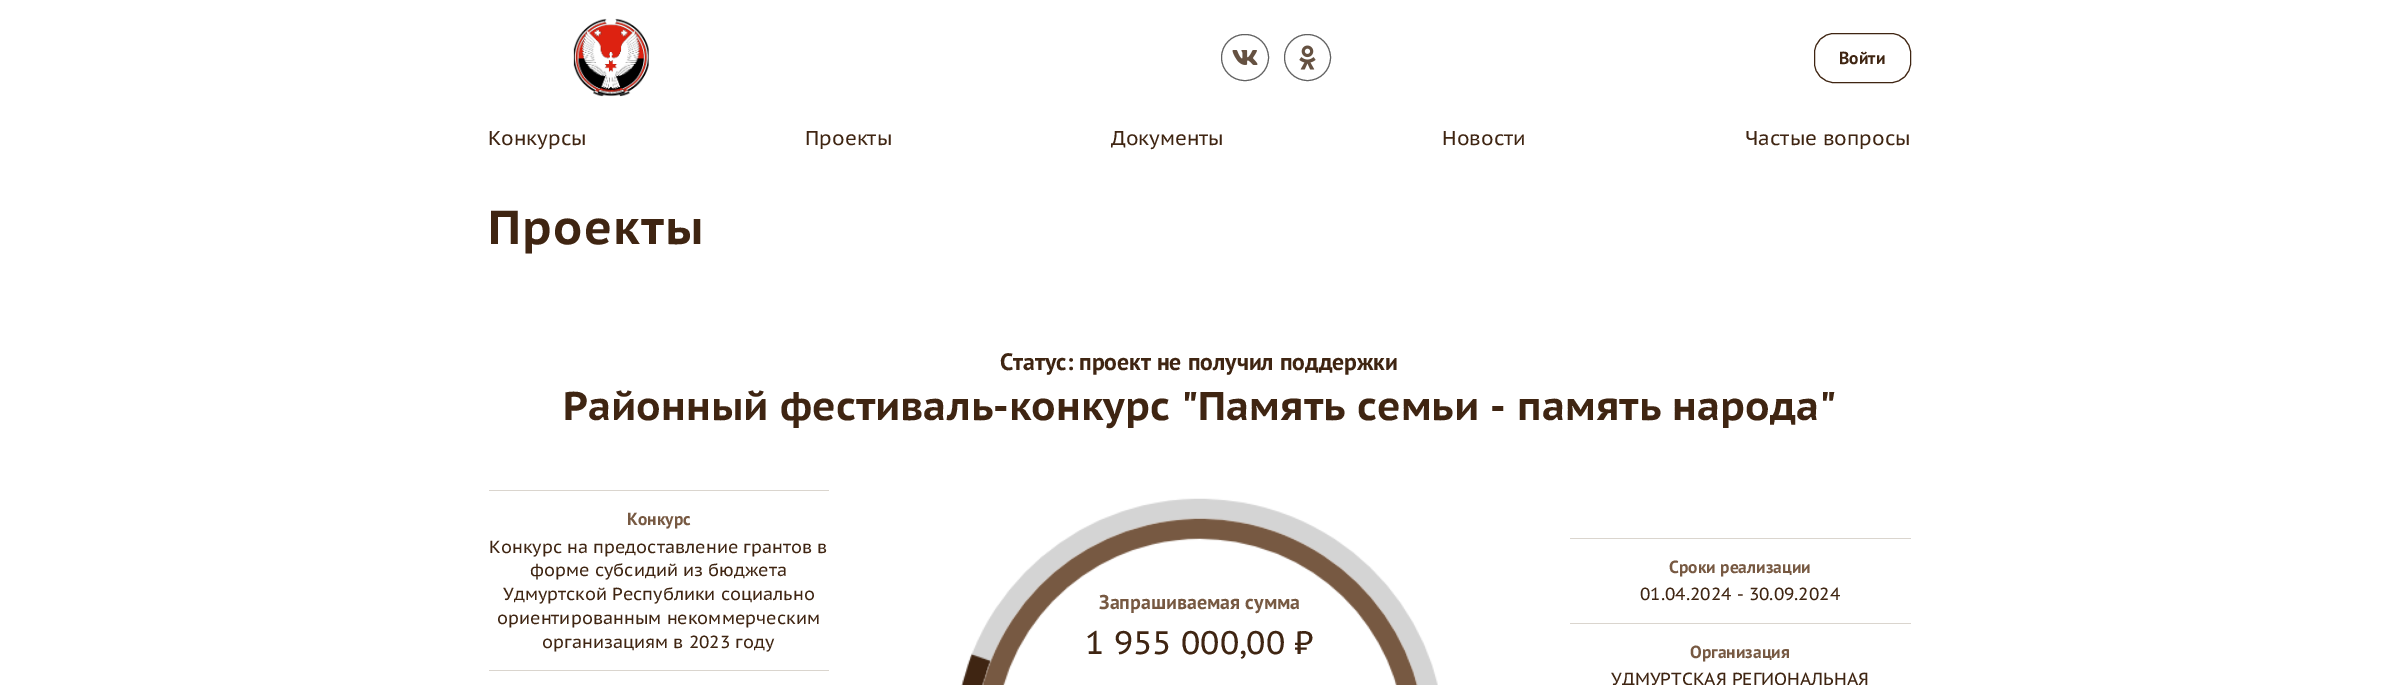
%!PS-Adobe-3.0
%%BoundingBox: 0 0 2398 685
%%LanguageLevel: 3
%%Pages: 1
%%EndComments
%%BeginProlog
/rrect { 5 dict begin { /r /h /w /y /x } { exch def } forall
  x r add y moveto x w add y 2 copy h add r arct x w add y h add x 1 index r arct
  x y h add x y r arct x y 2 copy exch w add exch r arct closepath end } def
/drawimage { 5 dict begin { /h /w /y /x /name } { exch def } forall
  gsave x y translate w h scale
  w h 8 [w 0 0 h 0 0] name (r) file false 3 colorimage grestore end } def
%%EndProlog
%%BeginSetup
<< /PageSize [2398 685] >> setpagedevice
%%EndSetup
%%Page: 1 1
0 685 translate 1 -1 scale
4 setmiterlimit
1 setgray
0 0 2398 685 rectfill
(images/1.raw) 573 18 76 79 drawimage
0.38 setgray
1221.5 34.5 47 46 23 rrect stroke
(images/2.raw) 1232 50 26 15 drawimage
newpath 1307.5 57.5 23 0 360 arc closepath stroke
(images/3.raw) 1299 45 17 25 drawimage
0.247 0.145 0.071 setrgbcolor
1814.5 33.5 96 49 19.5 rrect stroke
0.855 0.835 0.808 setrgbcolor
489 490 340 1 rectfill
489 670 340 1 rectfill
(images/4.raw) 961 498 477 187 drawimage
(images/5.raw) 982 518 436 167 drawimage
1570 538 341 1 rectfill
1570 623 341 1 rectfill
/PTSans-Bold [17.5 0 0 -17.5 0 0] selectfont
0.247 0.145 0.071 setrgbcolor
1839 64 moveto (Войти) show
/PTSansCaption-Regular [20 0 0 -20 0 0] selectfont
488 145 moveto (Конкурсы) show
805 145 moveto (Проекты) show
1111 145 moveto (Документы) show
1442 145 moveto (Новости) show
1745 145 moveto (Частые вопросы) show
/PTSansCaption-Bold [47.5 0 0 -47.5 0 0] selectfont
488 244 moveto 1.25 0 (Проекты) ashow
/PTSans-Bold [23.75 0 0 -23.75 0 0] selectfont
1000 370 moveto (Статус: проект не получил поддержки) show
/PTSansCaption-Bold [40 0 0 -40 0 0] selectfont
563 420 moveto (Районный фестиваль-конкурс "Память семьи - память народа") show
/PTSans-Bold [17.5 0 0 -17.5 0 0] selectfont
0.467 0.349 0.259 setrgbcolor
627 525 moveto (Конкурс) show
/PTSansCaption-Regular [17.5 0 0 -17.5 0 0] selectfont
0.247 0.145 0.071 setrgbcolor
489 553 moveto (Конкурс на предоставление грантов в) show
530 576 moveto (форме субсидий из бюджета) show
503 600 moveto (Удмуртской Республики социально) show
497 624 moveto (ориентированным некоммерческим) show
542 648 moveto (организациям в 2023 году) show
/PTSans-Bold [20 0 0 -20 0 0] selectfont
0.467 0.349 0.259 setrgbcolor
1099 609 moveto (Запрашиваемая сумма) show
/PTSansCaption-Regular [32.5 0 0 -32.5 0 0] selectfont
0.247 0.145 0.071 setrgbcolor
1085 654 moveto (1 955 000,00 ₽) show
/PTSans-Bold [17.5 0 0 -17.5 0 0] selectfont
0.467 0.349 0.259 setrgbcolor
1669 573 moveto (Сроки реализации) show
/PTSansCaption-Regular [17.5 0 0 -17.5 0 0] selectfont
0.247 0.145 0.071 setrgbcolor
1640 600 moveto (01.04.2024 - 30.09.2024) show
/PTSans-Bold [17.5 0 0 -17.5 0 0] selectfont
0.467 0.349 0.259 setrgbcolor
1690 658 moveto (Организация) show
/PTSansCaption-Regular [17.5 0 0 -17.5 0 0] selectfont
0.247 0.145 0.071 setrgbcolor
1611 685 moveto (УДМУРТСКАЯ РЕГИОНАЛЬНАЯ) show
showpage
%%EOF
